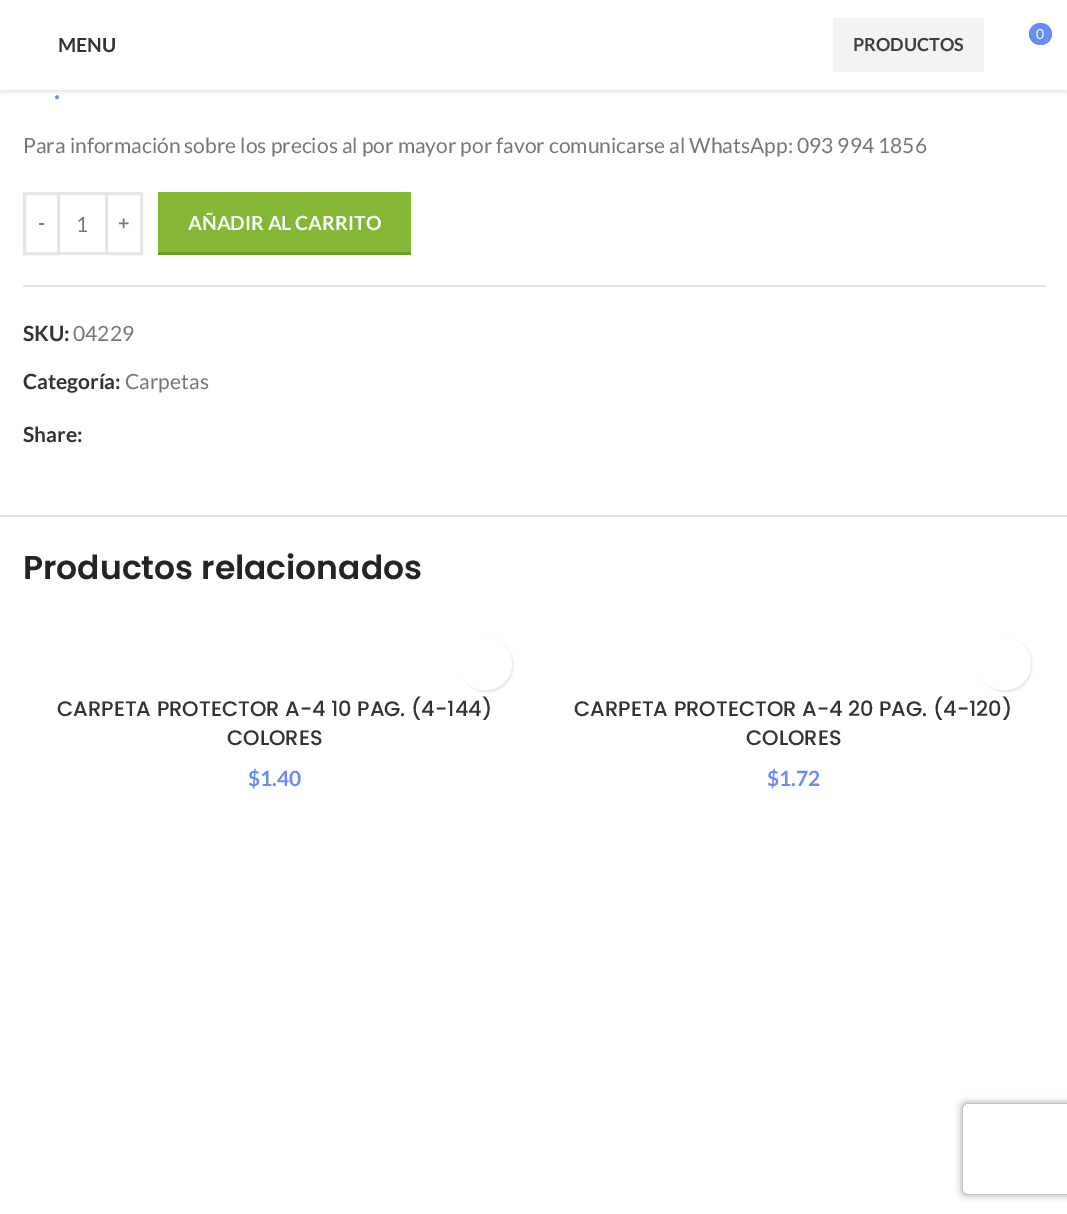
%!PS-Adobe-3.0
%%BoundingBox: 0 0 1067 1214
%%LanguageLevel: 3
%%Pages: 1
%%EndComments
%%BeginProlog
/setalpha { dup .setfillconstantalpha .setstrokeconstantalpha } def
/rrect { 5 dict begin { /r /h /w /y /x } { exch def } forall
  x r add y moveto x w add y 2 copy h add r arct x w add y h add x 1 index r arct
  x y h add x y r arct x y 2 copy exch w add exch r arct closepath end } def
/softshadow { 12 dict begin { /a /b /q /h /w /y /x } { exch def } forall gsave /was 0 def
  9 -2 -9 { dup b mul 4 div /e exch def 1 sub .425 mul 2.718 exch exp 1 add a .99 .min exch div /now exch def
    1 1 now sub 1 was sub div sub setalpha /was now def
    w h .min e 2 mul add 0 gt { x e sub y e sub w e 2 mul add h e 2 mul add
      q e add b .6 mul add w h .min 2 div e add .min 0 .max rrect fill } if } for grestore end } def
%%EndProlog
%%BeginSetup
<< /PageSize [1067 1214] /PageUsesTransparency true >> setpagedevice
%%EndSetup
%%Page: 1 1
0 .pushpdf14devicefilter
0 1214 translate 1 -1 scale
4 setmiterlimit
1 setgray
0 0 1067 1214 rectfill
0 setgray
0 2 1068 90 0 2 0.1 softshadow
1 setgray
0 0 1067 90 rectfill
0.412 0.549 0.961 setrgbcolor
1029 23 23 22 11 rrect fill
0.953 setgray
833 18 151 54 rectfill
0.902 setgray
3 setlinewidth
24.5 193.5 34 60 rectstroke
60 192 45 3 rectfill
60 252 45 3 rectfill
106.5 193.5 35 60 rectstroke
0.514 0.718 0.208 setrgbcolor
158 192 253 60 rectfill
0.435 0.612 0.176 setrgbcolor
158 252 253 3 rectfill
0.894 setgray
23 285 1023 2 rectfill
0 515 1067 2 rectfill
0 setgray
461 639 52 53 26 1 0.1 softshadow
1 setgray
459 638 53 52 26 rrect fill
0 setgray
980 639 52 53 26 1 0.1 softshadow
1 setgray
978 638 53 52 26 rrect fill
gsave
newpath 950 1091 moveto 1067 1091 lineto 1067 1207 lineto 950 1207 lineto closepath 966 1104 moveto 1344 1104 lineto 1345.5 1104 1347 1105.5 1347 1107 curveto 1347 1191 lineto 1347 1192.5 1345.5 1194 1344 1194 curveto 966 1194 lineto 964.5 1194 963 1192.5 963 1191 curveto 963 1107 lineto 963 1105.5 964.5 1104 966 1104 curveto closepath eoclip newpath
0.502 setgray
963 1104 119 90 3 4 1 softshadow
grestore
/Lato-Bold [19.5 0 0 -19.5 0 0] selectfont
0.2 setgray
58 52 moveto (MENU) show
/Lato-Regular [14 0 0 -14 0 0] selectfont
1 setgray
1036 39 moveto (0) show
/Lato-Bold [18 0 0 -18 0 0] selectfont
0.243 setgray
853 51 moveto (PRODUCTOS) show
/Lato-Bold [27 0 0 -27 0 0] selectfont
0.412 0.549 0.961 setrgbcolor
54 99 moveto (.) show
/Lato-Regular [21 0 0 -21 0 0] selectfont
0.467 setgray
23 153 moveto (Para información sobre los precios al por mayor por favor comunicarse al WhatsApp: 093 994 1856) show
/Lato-Bold [19.5 0 0 -19.5 0 0] selectfont
38 230 moveto (-) show
/Lato-Regular [21 0 0 -21 0 0] selectfont
76 232 moveto (1) show
/Lato-Bold [19.5 0 0 -19.5 0 0] selectfont
118 230 moveto (+) show
1 setgray
188 230 moveto (AÑADIR AL CARRITO) show
/Lato-Bold [21 0 0 -21 0 0] selectfont
0.2 setgray
23 341 moveto (SKU:) show
/Lato-Regular [21 0 0 -21 0 0] selectfont
0.467 setgray
73 341 moveto (04229) show
/Lato-Bold [21 0 0 -21 0 0] selectfont
0.2 setgray
23 389 moveto (Categoría:) show
/Lato-Regular [21 0 0 -21 0 0] selectfont
0.467 setgray
125 389 moveto (Carpetas) show
/Lato-Bold [21 0 0 -21 0 0] selectfont
0.2 setgray
23 442 moveto (Share:) show
/Poppins-SemiBold [33 0 0 -33 0 0] selectfont
0.141 setgray
23 579 moveto (Productos relacionados) show
/Poppins-Medium [21 0 0 -21 0 0] selectfont
0.2 setgray
57 716 moveto (CARPETA PROTECTOR A-4 10 PAG. \(4-144\)) show
227 745 moveto (COLORES) show
/Lato-Bold [21 0 0 -21 0 0] selectfont
0.412 0.549 0.961 setrgbcolor
248 786 moveto ($1.40) show
/Poppins-Medium [21 0 0 -21 0 0] selectfont
0.2 setgray
574 716 moveto (CARPETA PROTECTOR A-4 20 PAG. \(4-120\)) show
746 745 moveto (COLORES) show
/Lato-Bold [21 0 0 -21 0 0] selectfont
0.412 0.549 0.961 setrgbcolor
767 786 moveto ($1.72) show
.poppdf14devicefilter showpage
%%EOF
